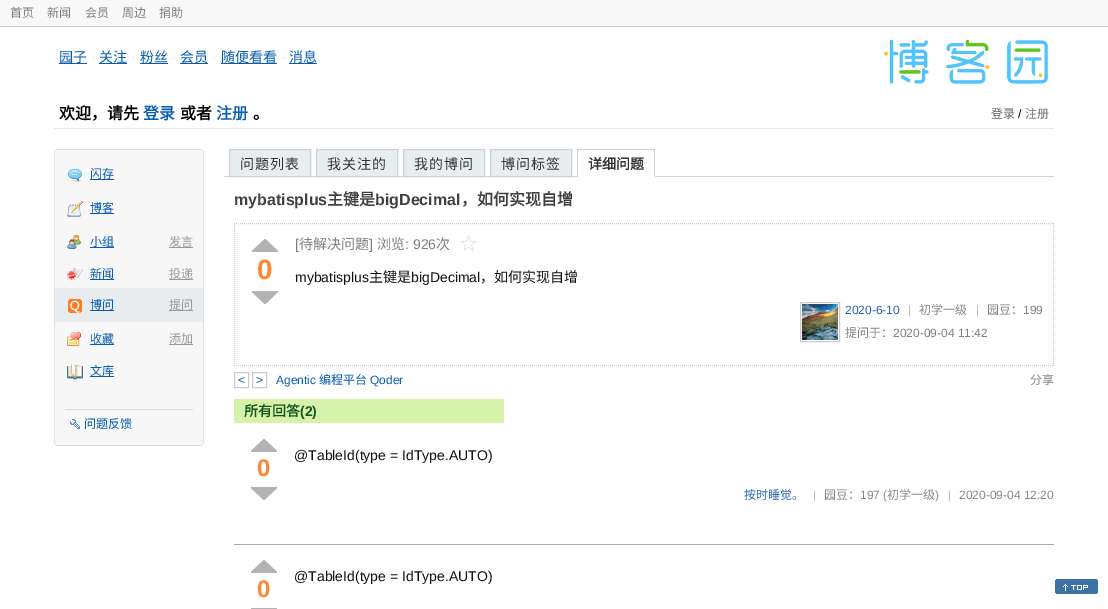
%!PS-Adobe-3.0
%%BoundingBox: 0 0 1108 609
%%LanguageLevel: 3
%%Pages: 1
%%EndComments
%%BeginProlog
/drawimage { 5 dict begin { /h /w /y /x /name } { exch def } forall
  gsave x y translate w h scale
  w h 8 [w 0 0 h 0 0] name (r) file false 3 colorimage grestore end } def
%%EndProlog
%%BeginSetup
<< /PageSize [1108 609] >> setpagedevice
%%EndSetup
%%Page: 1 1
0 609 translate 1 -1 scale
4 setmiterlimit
1 setgray
0 0 1108 609 rectfill
0.973 setgray
0 0 1108 26 rectfill
0.8 setgray
0 26 1108 1 rectfill
0.91 setgray
54 128 1000 1 rectfill
0.027 0.365 0.702 setrgbcolor
59 63 28 1 rectfill
99 63 28 1 rectfill
140 63 28 1 rectfill
180 63 28 1 rectfill
221 63 56 1 rectfill
289 63 28 1 rectfill
(images/1.raw) 884 39 165 45 drawimage
0.875 0.882 0.882 setrgbcolor
56 149 146 1 rectfill
0.969 setgray
55 150 148 1 rectfill
0.875 0.882 0.882 setrgbcolor
202 150 1 1 rectfill
55 150 1 1 rectfill
0.969 setgray
54 151 150 1 rectfill
0.859 0.871 0.886 setrgbcolor
203 151 1 1 rectfill
0.875 0.882 0.882 setrgbcolor
54 151 1 292 rectfill
0.969 setgray
55 152 148 291 rectfill
0.875 0.882 0.882 setrgbcolor
203 152 1 291 rectfill
(images/2.raw) 68 169 14 13 drawimage
0.027 0.365 0.702 setrgbcolor
90 179 24 1 rectfill
(images/3.raw) 67 201 16 16 drawimage
90 213 24 1 rectfill
(images/4.raw) 67 235 14 14 drawimage
90 247 24 1 rectfill
0.6 setgray
169 247 24 1 rectfill
(images/5.raw) 67 267 16 13 drawimage
0.027 0.365 0.702 setrgbcolor
90 279 24 1 rectfill
0.6 setgray
169 279 24 1 rectfill
0.914 0.925 0.937 setrgbcolor
55 288 148 34 rectfill
(images/6.raw) 68 299 14 14 drawimage
0.027 0.365 0.702 setrgbcolor
90 310 24 1 rectfill
0.6 setgray
169 310 24 1 rectfill
(images/7.raw) 67 332 14 14 drawimage
0.027 0.365 0.702 setrgbcolor
90 344 24 1 rectfill
0.6 setgray
169 344 24 1 rectfill
(images/8.raw) 67 364 16 16 drawimage
0.027 0.365 0.702 setrgbcolor
90 376 24 1 rectfill
0.867 setgray
65 409 128 1 rectfill
(images/9.raw) 70 419 10 10 drawimage
0.969 setgray
54 443 150 1 rectfill
0.859 0.871 0.886 setrgbcolor
203 443 1 1 rectfill
0.875 0.882 0.882 setrgbcolor
54 443 1 1 rectfill
0.969 setgray
55 444 148 1 rectfill
0.875 0.882 0.882 setrgbcolor
202 444 1 1 rectfill
55 444 1 1 rectfill
56 445 146 1 rectfill
0.784 0.827 0.871 setrgbcolor
224 176 830 1 rectfill
0.91 0.929 0.941 setrgbcolor
newpath 229.5 149.5 moveto 310.5 149.5 lineto 310.5 176.5 lineto 229.5 176.5 lineto closepath gsave fill grestore
0.784 0.827 0.871 setrgbcolor
stroke
0.91 0.929 0.941 setrgbcolor
newpath 316.5 149.5 moveto 397.5 149.5 lineto 397.5 176.5 lineto 316.5 176.5 lineto closepath gsave fill grestore
0.784 0.827 0.871 setrgbcolor
stroke
0.91 0.929 0.941 setrgbcolor
newpath 403.5 149.5 moveto 484.5 149.5 lineto 484.5 176.5 lineto 403.5 176.5 lineto closepath gsave fill grestore
0.784 0.827 0.871 setrgbcolor
stroke
0.91 0.929 0.941 setrgbcolor
newpath 490.5 149.5 moveto 571.5 149.5 lineto 571.5 176.5 lineto 490.5 176.5 lineto closepath gsave fill grestore
0.784 0.827 0.871 setrgbcolor
stroke
577 149 78 1 rectfill
654 149 1 28 rectfill
1 setgray
577 176 78 1 rectfill
0.784 0.827 0.871 setrgbcolor
577 149 1 28 rectfill
0.8 setgray
[1 1] 0 setdash
newpath 234 223.5 moveto 1054 223.5 lineto stroke
newpath 1053.5 223 moveto 1053.5 366 lineto stroke
newpath 234 365.5 moveto 1054 365.5 lineto stroke
newpath 234.5 223 moveto 234.5 366 lineto stroke
(images/10.raw) 252 239 26 13 drawimage
(images/11.raw) 252 291 26 13 drawimage
(images/12.raw) 461 235 15 16 drawimage
[] 0 setdash
800.5 302.5 39 39 rectstroke
(images/13.raw) 802 304 36 36 drawimage
234.5 372.5 14 15 rectstroke
252.5 372.5 14 15 rectstroke
0.839 0.949 0.663 setrgbcolor
234 399 270 24 rectfill
0.667 setgray
234 544 820 1 rectfill
(images/10.raw) 251 439 26 13 drawimage
(images/11.raw) 251 487 26 13 drawimage
(images/10.raw) 251 560 26 13 drawimage
0.702 0.702 0.714 setrgbcolor
251 608 26 1 rectfill
(images/14.raw) 1055 579 43 15 drawimage
/NotoSansCJKSC-Regular [12 0 0 -12 0 0] selectfont
0.502 setgray
10 17 moveto (首页) show
47 17 moveto (新闻) show
85 17 moveto (会员) show
122 17 moveto (周边) show
159 17 moveto (捐助) show
/NotoSansCJKSC-Regular [14 0 0 -14 0 0] selectfont
0.027 0.365 0.702 setrgbcolor
59 62 moveto (园子) show
/LiberationSans-Regular [14 0 0 -14 0 0] selectfont
0.875 setgray
91 62 moveto (·) show
/NotoSansCJKSC-Regular [14 0 0 -14 0 0] selectfont
0.027 0.365 0.702 setrgbcolor
99 62 moveto (关注) show
/LiberationSans-Regular [14 0 0 -14 0 0] selectfont
0.875 setgray
131 62 moveto (·) show
/NotoSansCJKSC-Regular [14 0 0 -14 0 0] selectfont
0.027 0.365 0.702 setrgbcolor
140 62 moveto (粉丝) show
/LiberationSans-Regular [14 0 0 -14 0 0] selectfont
0.875 setgray
172 62 moveto (·) show
/NotoSansCJKSC-Regular [14 0 0 -14 0 0] selectfont
0.027 0.365 0.702 setrgbcolor
180 62 moveto (会员) show
/LiberationSans-Regular [14 0 0 -14 0 0] selectfont
0.875 setgray
212 62 moveto (·) show
/NotoSansCJKSC-Regular [14 0 0 -14 0 0] selectfont
0.027 0.365 0.702 setrgbcolor
221 62 moveto (随便看看) show
/LiberationSans-Regular [14 0 0 -14 0 0] selectfont
0.875 setgray
281 62 moveto (·) show
/NotoSansCJKSC-Regular [14 0 0 -14 0 0] selectfont
0.027 0.365 0.702 setrgbcolor
289 62 moveto (消息) show
/NotoSansCJKSC-Bold [16 0 0 -16 0 0] selectfont
0 setgray
59 119 moveto (欢迎，请先) show
0.027 0.365 0.702 setrgbcolor
143 119 moveto (登录) show
0 setgray
180 119 moveto (或者) show
0.027 0.365 0.702 setrgbcolor
216 119 moveto (注册) show
0 setgray
253 119 moveto (。) show
/NotoSansCJKSC-Regular [12 0 0 -12 0 0] selectfont
0.4 setgray
991 118 moveto (登录) show
/LiberationSans-Regular [12 0 0 -12 0 0] selectfont
0 setgray
1018 118 moveto (/) show
/NotoSansCJKSC-Regular [12 0 0 -12 0 0] selectfont
0.4 setgray
1025 118 moveto (注册) show
0.027 0.365 0.702 setrgbcolor
90 178 moveto (闪存) show
90 212 moveto (博客) show
90 246 moveto (小组) show
0.6 setgray
169 246 moveto (发言) show
0.027 0.365 0.702 setrgbcolor
90 278 moveto (新闻) show
0.6 setgray
169 278 moveto (投递) show
0.027 0.365 0.702 setrgbcolor
90 309 moveto (博问) show
0.6 setgray
169 309 moveto (提问) show
0.027 0.365 0.702 setrgbcolor
90 343 moveto (收藏) show
0.6 setgray
169 343 moveto (添加) show
0.027 0.365 0.702 setrgbcolor
90 375 moveto (文库) show
84 428 moveto (问题反馈) show
/NotoSansCJKSC-Regular [14 0 0 -14 0 0] selectfont
0.2 setgray
240 169 moveto 1 0 (问题列表) ashow
327 169 moveto 1 0 (我关注的) ashow
414 169 moveto 1 0 (我的博问) ashow
501 169 moveto 1 0 (博问标签) ashow
/NotoSansCJKSC-Bold [14 0 0 -14 0 0] selectfont
588 169 moveto (详细问题) show
/LiberationSans-Bold [16 0 0 -16 0 0] selectfont
0.251 setgray
234 205 moveto (mybatisplus) show
/NotoSansCJKSC-Bold [16 0 0 -16 0 0] selectfont
327 205 moveto (主键是) show
/LiberationSans-Bold [16 0 0 -16 0 0] selectfont
375 205 moveto (bigDecimal) show
/NotoSansCJKSC-Bold [16 0 0 -16 0 0] selectfont
461 205 moveto (，如何实现自增) show
/LiberationSans-Bold [28 0 0 -28 0 0] selectfont
1 0.525 0.208 setrgbcolor
257 279 moveto (0) show
/LiberationSans-Regular [14 0 0 -14 0 0] selectfont
0.502 setgray
295 249 moveto ([) show
/NotoSansCJKSC-Regular [14 0 0 -14 0 0] selectfont
299 249 moveto (待解决问题) show
/LiberationSans-Regular [14 0 0 -14 0 0] selectfont
369 249 moveto (]) show
/NotoSansCJKSC-Regular [14 0 0 -14 0 0] selectfont
377 249 moveto (浏览) show
/LiberationSans-Regular [14 0 0 -14 0 0] selectfont
405 249 moveto (: 926) show
/NotoSansCJKSC-Regular [14 0 0 -14 0 0] selectfont
436 249 moveto (次) show
/LiberationSans-Regular [14 0 0 -14 0 0] selectfont
0.067 setgray
295 282 moveto (mybatisplus) show
/NotoSansCJKSC-Regular [14 0 0 -14 0 0] selectfont
369 282 moveto (主键是) show
/LiberationSans-Regular [14 0 0 -14 0 0] selectfont
411 282 moveto (bigDecimal) show
/NotoSansCJKSC-Regular [14 0 0 -14 0 0] selectfont
480 282 moveto (，如何实现自增) show
/LiberationSans-Regular [12 0 0 -12 0 0] selectfont
0.161 0.396 0.694 setrgbcolor
845 314 moveto (2020-6-10) show
0.757 setgray
908 314 moveto (|) show
/NotoSansCJKSC-Regular [12 0 0 -12 0 0] selectfont
0.533 setgray
919 314 moveto (初学一级) show
/LiberationSans-Regular [12 0 0 -12 0 0] selectfont
0.757 setgray
976 314 moveto (|) show
/NotoSansCJKSC-Regular [12 0 0 -12 0 0] selectfont
0.502 setgray
987 314 moveto (园豆：) show
/LiberationSans-Regular [12 0 0 -12 0 0] selectfont
1023 314 moveto (199) show
/NotoSansCJKSC-Regular [12 0 0 -12 0 0] selectfont
845 337 moveto (提问于：) show
/LiberationSans-Regular [12 0 0 -12 0 0] selectfont
893 337 moveto (2020-09-04 11:42) show
0.027 0.365 0.702 setrgbcolor
238 384 moveto (<) show
256 384 moveto (>) show
276 384 moveto (Agentic) show
/NotoSansCJKSC-Regular [12 0 0 -12 0 0] selectfont
319 384 moveto (编程平台) show
/LiberationSans-Regular [12 0 0 -12 0 0] selectfont
370 384 moveto (Qoder) show
/NotoSansCJKSC-Regular [12 0 0 -12 0 0] selectfont
0.533 setgray
1030 384 moveto (分享) show
/NotoSansCJKSC-Bold [14 0 0 -14 0 0] selectfont
0.082 0.333 0.118 setrgbcolor
244 416 moveto (所有回答) show
/LiberationSans-Bold [14 0 0 -14 0 0] selectfont
300 416 moveto (\(2\)) show
/LiberationSans-Bold [24 0 0 -24 0 0] selectfont
1 0.525 0.208 setrgbcolor
257 476 moveto (0) show
/LiberationSans-Regular [14 0 0 -14 0 0] selectfont
0.067 setgray
294 460 moveto (@TableId\(type = IdType.AUTO\)) show
/NotoSansCJKSC-Regular [12 0 0 -12 0 0] selectfont
0.161 0.396 0.694 setrgbcolor
744 499 moveto (按时睡觉。) show
/LiberationSans-Regular [12 0 0 -12 0 0] selectfont
0.757 setgray
813 499 moveto (|) show
/NotoSansCJKSC-Regular [12 0 0 -12 0 0] selectfont
0.533 setgray
824 499 moveto (园豆：) show
/LiberationSans-Regular [12 0 0 -12 0 0] selectfont
860 499 moveto (197 \() show
/NotoSansCJKSC-Regular [12 0 0 -12 0 0] selectfont
887 499 moveto (初学一级) show
/LiberationSans-Regular [12 0 0 -12 0 0] selectfont
935 499 moveto (\)) show
0.757 setgray
948 499 moveto (|) show
0.533 setgray
959 499 moveto (2020-09-04 12:20) show
/LiberationSans-Regular [14 0 0 -14 0 0] selectfont
0.067 setgray
294 581 moveto (@TableId\(type = IdType.AUTO\)) show
/LiberationSans-Bold [24 0 0 -24 0 0] selectfont
1 0.525 0.208 setrgbcolor
257 597 moveto (0) show
showpage
%%EOF
